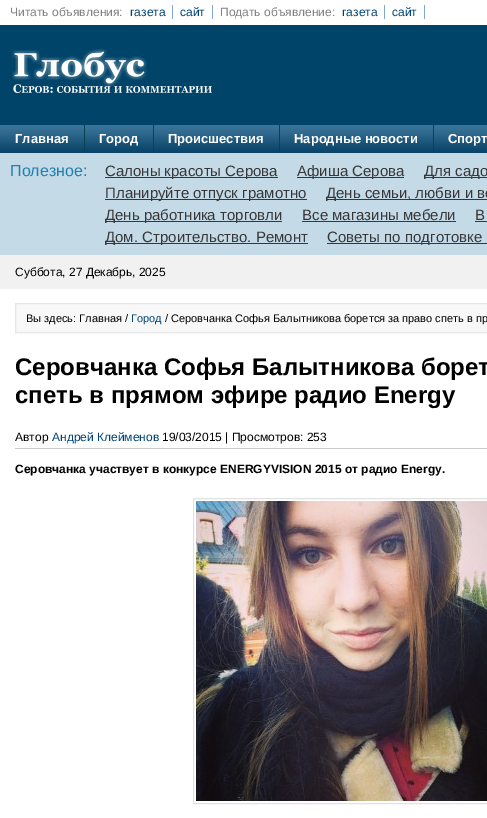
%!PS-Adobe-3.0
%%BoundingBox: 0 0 487 818
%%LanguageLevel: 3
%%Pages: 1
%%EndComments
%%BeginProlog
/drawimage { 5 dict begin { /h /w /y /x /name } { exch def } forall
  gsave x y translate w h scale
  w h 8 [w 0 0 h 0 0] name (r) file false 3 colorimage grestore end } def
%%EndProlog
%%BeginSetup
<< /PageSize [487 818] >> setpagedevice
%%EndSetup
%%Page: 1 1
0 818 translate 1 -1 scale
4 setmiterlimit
1 setgray
0 0 487 818 rectfill
0.502 0.659 0.812 setrgbcolor
172 5 1 14 rectfill
212 5 1 14 rectfill
384 5 1 14 rectfill
424 5 1 14 rectfill
0 0.267 0.412 setrgbcolor
0 25 487 100 rectfill
(images/1.raw) 12 49 200 44 drawimage
(images/2.raw) 0 125 487 28 drawimage
0 0.267 0.333 setrgbcolor
84 125 1 27 rectfill
153 125 1 27 rectfill
279 125 1 27 rectfill
433 125 1 27 rectfill
0.773 0.855 0.906 setrgbcolor
0 153 487 102 rectfill
0.216 setgray
105 177 173 1 rectfill
297 177 107 1 rectfill
424 177 63 1 rectfill
105 199 202 1 rectfill
326 199 161 1 rectfill
105 221 177 1 rectfill
302 221 154 1 rectfill
475 221 12 1 rectfill
105 243 203 1 rectfill
327 243 160 1 rectfill
0.945 setgray
0 255 487 34 rectfill
0.973 setgray
newpath 15.5 303.5 moveto 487.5 303.5 lineto 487.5 332.5 lineto 15.5 332.5 lineto closepath gsave fill grestore
0.902 setgray
stroke
0.8 setgray
15 448 472 1 rectfill
0.882 setgray
193.5 498.5 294 305 rectstroke
(images/3.raw) 196 501 291 300 drawimage
/LiberationSans-Regular [12 0 0 -12 0 0] selectfont
0.51 setgray
10 16 moveto (Читать объявления:) show
0 0.267 0.467 setrgbcolor
130 16 moveto (газета) show
180 16 moveto (сайт) show
0.51 setgray
220 16 moveto (Подать объявление:) show
0 0.267 0.467 setrgbcolor
342 16 moveto (газета) show
392 16 moveto (сайт) show
/LiberationSans-Bold [13 0 0 -13 0 0] selectfont
1 setgray
15 143 moveto (Главная) show
99 143 moveto (Город) show
168 143 moveto (Происшествия) show
294 143 moveto (Народные новости) show
448 143 moveto (Спорт) show
/LiberationSans-Regular [16 0 0 -16 0 0] selectfont
0.118 0.51 0.686 setrgbcolor
10 176 moveto (Полезное:) show
/LiberationSans-Regular [15 0 0 -15 0 0] selectfont
0.216 setgray
105 176 moveto (Салоны красоты Серова) show
297 176 moveto (Афиша Серова) show
424 176 moveto (Для садо) show
105 198 moveto (Планируйте отпуск грамотно) show
326 198 moveto (День семьи, любви и ве) show
105 220 moveto (День работника торговли) show
302 220 moveto (Все магазины мебели) show
475 220 moveto (В) show
105 242 moveto (Дом. Строительство. Ремонт) show
327 242 moveto (Советы по подготовке) show
/LiberationSans-Regular [12 0 0 -12 0 0] selectfont
0 setgray
15 276 moveto (Суббота, 27 Декабрь, 2025) show
/LiberationSans-Regular [11 0 0 -11 0 0] selectfont
26 322 moveto (Вы здесь: Главная /) show
0 0.267 0.467 setrgbcolor
131 322 moveto (Город) show
0 setgray
165 322 moveto (/ Серовчанка Софья Балытникова борется за право спеть в пр) show
/LiberationSans-Bold [24 0 0 -24 0 0] selectfont
15 375 moveto (Серовчанка Софья Балытникова борет) show
15 403 moveto (спеть в прямом эфире радио Energy) show
/LiberationSans-Regular [12 0 0 -12 0 0] selectfont
15 441 moveto (Автор) show
0 0.267 0.467 setrgbcolor
52 441 moveto (Андрей Клейменов) show
0 setgray
162 441 moveto (19/03/2015 | Просмотров: 253) show
/LiberationSans-Bold [12 0 0 -12 0 0] selectfont
15 473 moveto (Серовчанка участвует в конкурсе ENERGYVISION 2015 от радио Energy.) show
showpage
%%EOF
